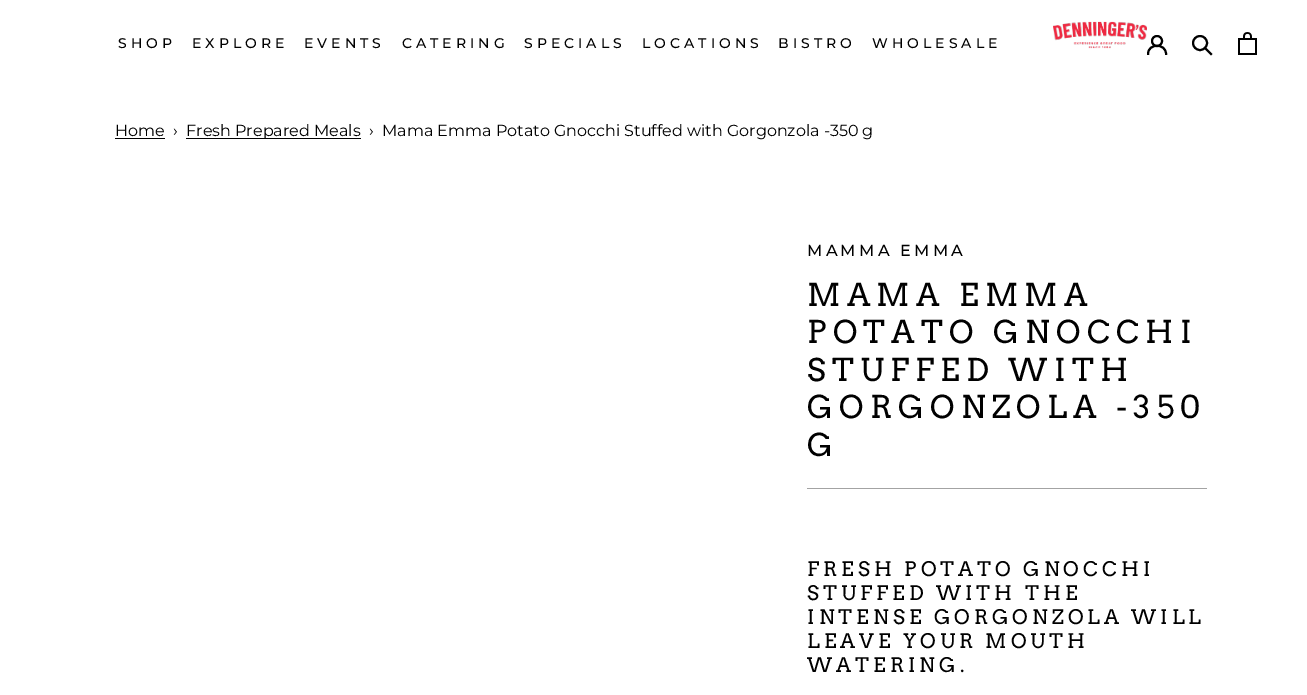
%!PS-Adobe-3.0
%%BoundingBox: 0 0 1307 695
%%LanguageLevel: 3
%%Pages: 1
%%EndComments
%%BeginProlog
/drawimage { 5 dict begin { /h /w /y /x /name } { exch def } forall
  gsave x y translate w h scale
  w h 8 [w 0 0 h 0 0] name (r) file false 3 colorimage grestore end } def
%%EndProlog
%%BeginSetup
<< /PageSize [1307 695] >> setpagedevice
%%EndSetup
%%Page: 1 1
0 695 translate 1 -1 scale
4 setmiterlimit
1 setgray
0 0 1307 695 rectfill
(images/1.raw) 1053 21 94 28 drawimage
0 setgray
2 setlinewidth
2 setlinecap
newpath 1148 54 moveto 1148 43 1166 43 1166 54 curveto stroke
0 setlinecap
newpath 1157 41 5 0 360 arc closepath stroke
2 setlinecap
newpath 1211 54 moveto 1205.5 48.5 lineto stroke
0 setlinecap
newpath 1200 43 7 0 360 arc closepath stroke
(images/2.raw) 1238 32 19 23 drawimage
115 138 50 1 rectfill
186 138 175 1 rectfill
0.639 setgray
807 488 400 1 rectfill
/Montserrat-Thin [14 0 0 -14 0 0] selectfont
0 setgray
118 48 moveto 4 0 (SHOP) ashow
192 48 moveto 4 0 (EXPLORE) ashow
304 48 moveto 4 0 (EVENTS) ashow
402 48 moveto 4 0 (CATERING) ashow
524 48 moveto 4 0 (SPECIALS) ashow
642 48 moveto 4 0 (LOCATIONS) ashow
778 48 moveto 4 0 (BISTRO) ashow
872 48 moveto 4 0 (WHOLESALE) ashow
/Montserrat-Regular [16 0 0 -16 0 0] selectfont
115 136 moveto (Home) show
173 136 moveto (›) show
186 136 moveto (Fresh Prepared Meals) show
369 136 moveto (›) show
382 136 moveto (Mama Emma Potato Gnocchi Stuffed with Gorgonzola -350 g) show
/Montserrat-Thin [16 0 0 -16 0 0] selectfont
807 256 moveto 3.25 0 (MAMMA EMMA) ashow
/Arvo-Regular [31.25 0 0 -31.25 0 0] selectfont
807 306 moveto 6.25 0 (MAMA EMMA) ashow
807 343 moveto 6.25 0 (POTATO GNOCCHI) ashow
807 381 moveto 6.25 0 (STUFFED WITH) ashow
807 418 moveto 6.25 0 (GORGONZOLA -350) ashow
807 456 moveto 6.25 0 (G) ashow
/Arvo-Regular [20 0 0 -20 0 0] selectfont
807 576 moveto 4 0 (FRESH POTATO GNOCCHI) ashow
807 600 moveto 4 0 (STUFFED WITH THE) ashow
807 624 moveto 4 0 (INTENSE GORGONZOLA WILL) ashow
807 648 moveto 4 0 (LEAVE YOUR MOUTH) ashow
807 672 moveto 4 0 (WATERING.) ashow
showpage
%%EOF
